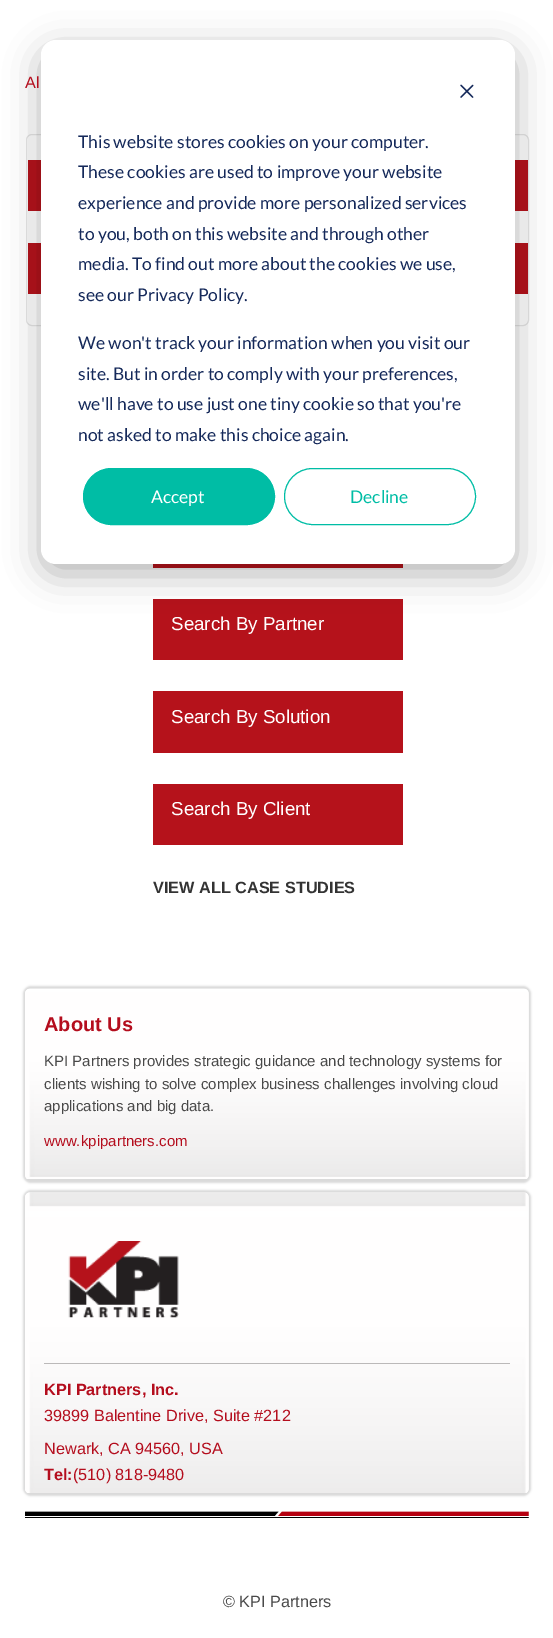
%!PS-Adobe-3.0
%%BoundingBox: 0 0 553 1638
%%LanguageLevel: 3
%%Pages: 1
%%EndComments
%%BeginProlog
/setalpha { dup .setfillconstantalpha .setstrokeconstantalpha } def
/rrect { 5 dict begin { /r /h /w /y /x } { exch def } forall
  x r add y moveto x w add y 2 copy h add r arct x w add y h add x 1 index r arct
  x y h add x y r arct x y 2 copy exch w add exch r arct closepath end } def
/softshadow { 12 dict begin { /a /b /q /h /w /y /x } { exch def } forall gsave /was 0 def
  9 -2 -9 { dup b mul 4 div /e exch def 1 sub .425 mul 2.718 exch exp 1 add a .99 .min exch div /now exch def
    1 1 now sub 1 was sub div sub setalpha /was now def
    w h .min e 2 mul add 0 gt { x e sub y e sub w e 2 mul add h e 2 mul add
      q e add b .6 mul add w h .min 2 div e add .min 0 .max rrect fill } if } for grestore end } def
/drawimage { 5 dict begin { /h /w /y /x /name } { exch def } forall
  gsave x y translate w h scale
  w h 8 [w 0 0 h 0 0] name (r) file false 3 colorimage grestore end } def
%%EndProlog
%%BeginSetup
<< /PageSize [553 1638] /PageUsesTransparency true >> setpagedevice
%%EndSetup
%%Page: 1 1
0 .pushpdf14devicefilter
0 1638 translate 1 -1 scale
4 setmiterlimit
1 setgray
0 0 553 1638 rectfill
0.894 setgray
26.5 134.5 502 191 5.5 rrect stroke
0.71 0.071 0.106 setrgbcolor
28 160 500 51 rectfill
28 243 500 51 rectfill
153 564 250 4 rectfill
153 599 250 61 rectfill
153 691 250 62 rectfill
153 784 250 61 rectfill
0 setgray
41 50 474 524 15 17.5 0.28 softshadow
1 setgray
41 40 474 524 15 rrect fill
(images/1.raw) 460 84 14 14 drawimage
0 0.741 0.647 setrgbcolor
83.5 468.5 191 56 28 rrect gsave fill grestore
stroke
284.5 468.5 191 56 28 rrect stroke
(images/2.raw) 25 1511 504 7 drawimage
0.851 setgray
23 986 508 197 8 1 1 softshadow
(images/3.raw) 25 988 504 191 drawimage
23 1190 508 306 8 1 1 softshadow
(images/4.raw) 25 1192 504 301 drawimage
(images/5.raw) 68 1241 111 77 drawimage
0.733 0.725 0.725 setrgbcolor
44 1363 466 1 rectfill
/LiberationSans-Regular [16.25 0 0 -16.25 0 0] selectfont
0.706 0.051 0.114 setrgbcolor
25 88 moveto (Al) show
/LiberationSans-Regular [18.75 0 0 -18.75 0 0] selectfont
1 setgray
171 630 moveto (Search By Partner) show
171 723 moveto (Search By Solution) show
171 815 moveto (Search By Client) show
/LiberationSans-Bold [16.25 0 0 -16.25 0 0] selectfont
0.2 setgray
153 893 moveto (VIEW ALL CASE STUDIES) show
/Lato-Regular [17.5 0 0 -17.5 0 0] selectfont
0.082 0.161 0.353 setrgbcolor
78 148 moveto (This website stores cookies on your computer.) show
78 178 moveto (These cookies are used to improve your website) show
78 209 moveto (experience and provide more personalized services) show
78 240 moveto (to you, both on this website and through other) show
78 270 moveto (media. To find out more about the cookies we use,) show
78 301 moveto (see our Privacy Policy.) show
78 349 moveto (We won't track your information when you visit our) show
78 380 moveto (site. But in order to comply with your preferences,) show
78 410 moveto (we'll have to use just one tiny cookie so that you're) show
78 441 moveto (not asked to make this choice again.) show
1 setgray
151 503 moveto (Accept) show
0 0.741 0.647 setrgbcolor
350 503 moveto (Decline) show
/LiberationSans-Bold [20 0 0 -20 0 0] selectfont
0.706 0.051 0.114 setrgbcolor
44 1031 moveto (About Us) show
/LiberationSans-Regular [15 0 0 -15 0 0] selectfont
0.286 setgray
44 1066 moveto (KPI Partners provides strategic guidance and technology systems for) show
44 1089 moveto (clients wishing to solve complex business challenges involving cloud) show
44 1111 moveto (applications and big data.) show
0.706 0.051 0.114 setrgbcolor
44 1146 moveto (www.kpipartners.com) show
/LiberationSans-Bold [16.25 0 0 -16.25 0 0] selectfont
44 1395 moveto (KPI Partners, Inc.) show
/LiberationSans-Regular [16.25 0 0 -16.25 0 0] selectfont
44 1421 moveto (39899 Balentine Drive, Suite #212) show
44 1454 moveto (Newark, CA 94560, USA) show
/LiberationSans-Bold [16.25 0 0 -16.25 0 0] selectfont
44 1480 moveto (Tel:) show
/LiberationSans-Regular [16.25 0 0 -16.25 0 0] selectfont
73 1480 moveto (\(510\) 818-9480) show
0.286 setgray
223 1607 moveto (© KPI Partners) show
.poppdf14devicefilter showpage
%%EOF
